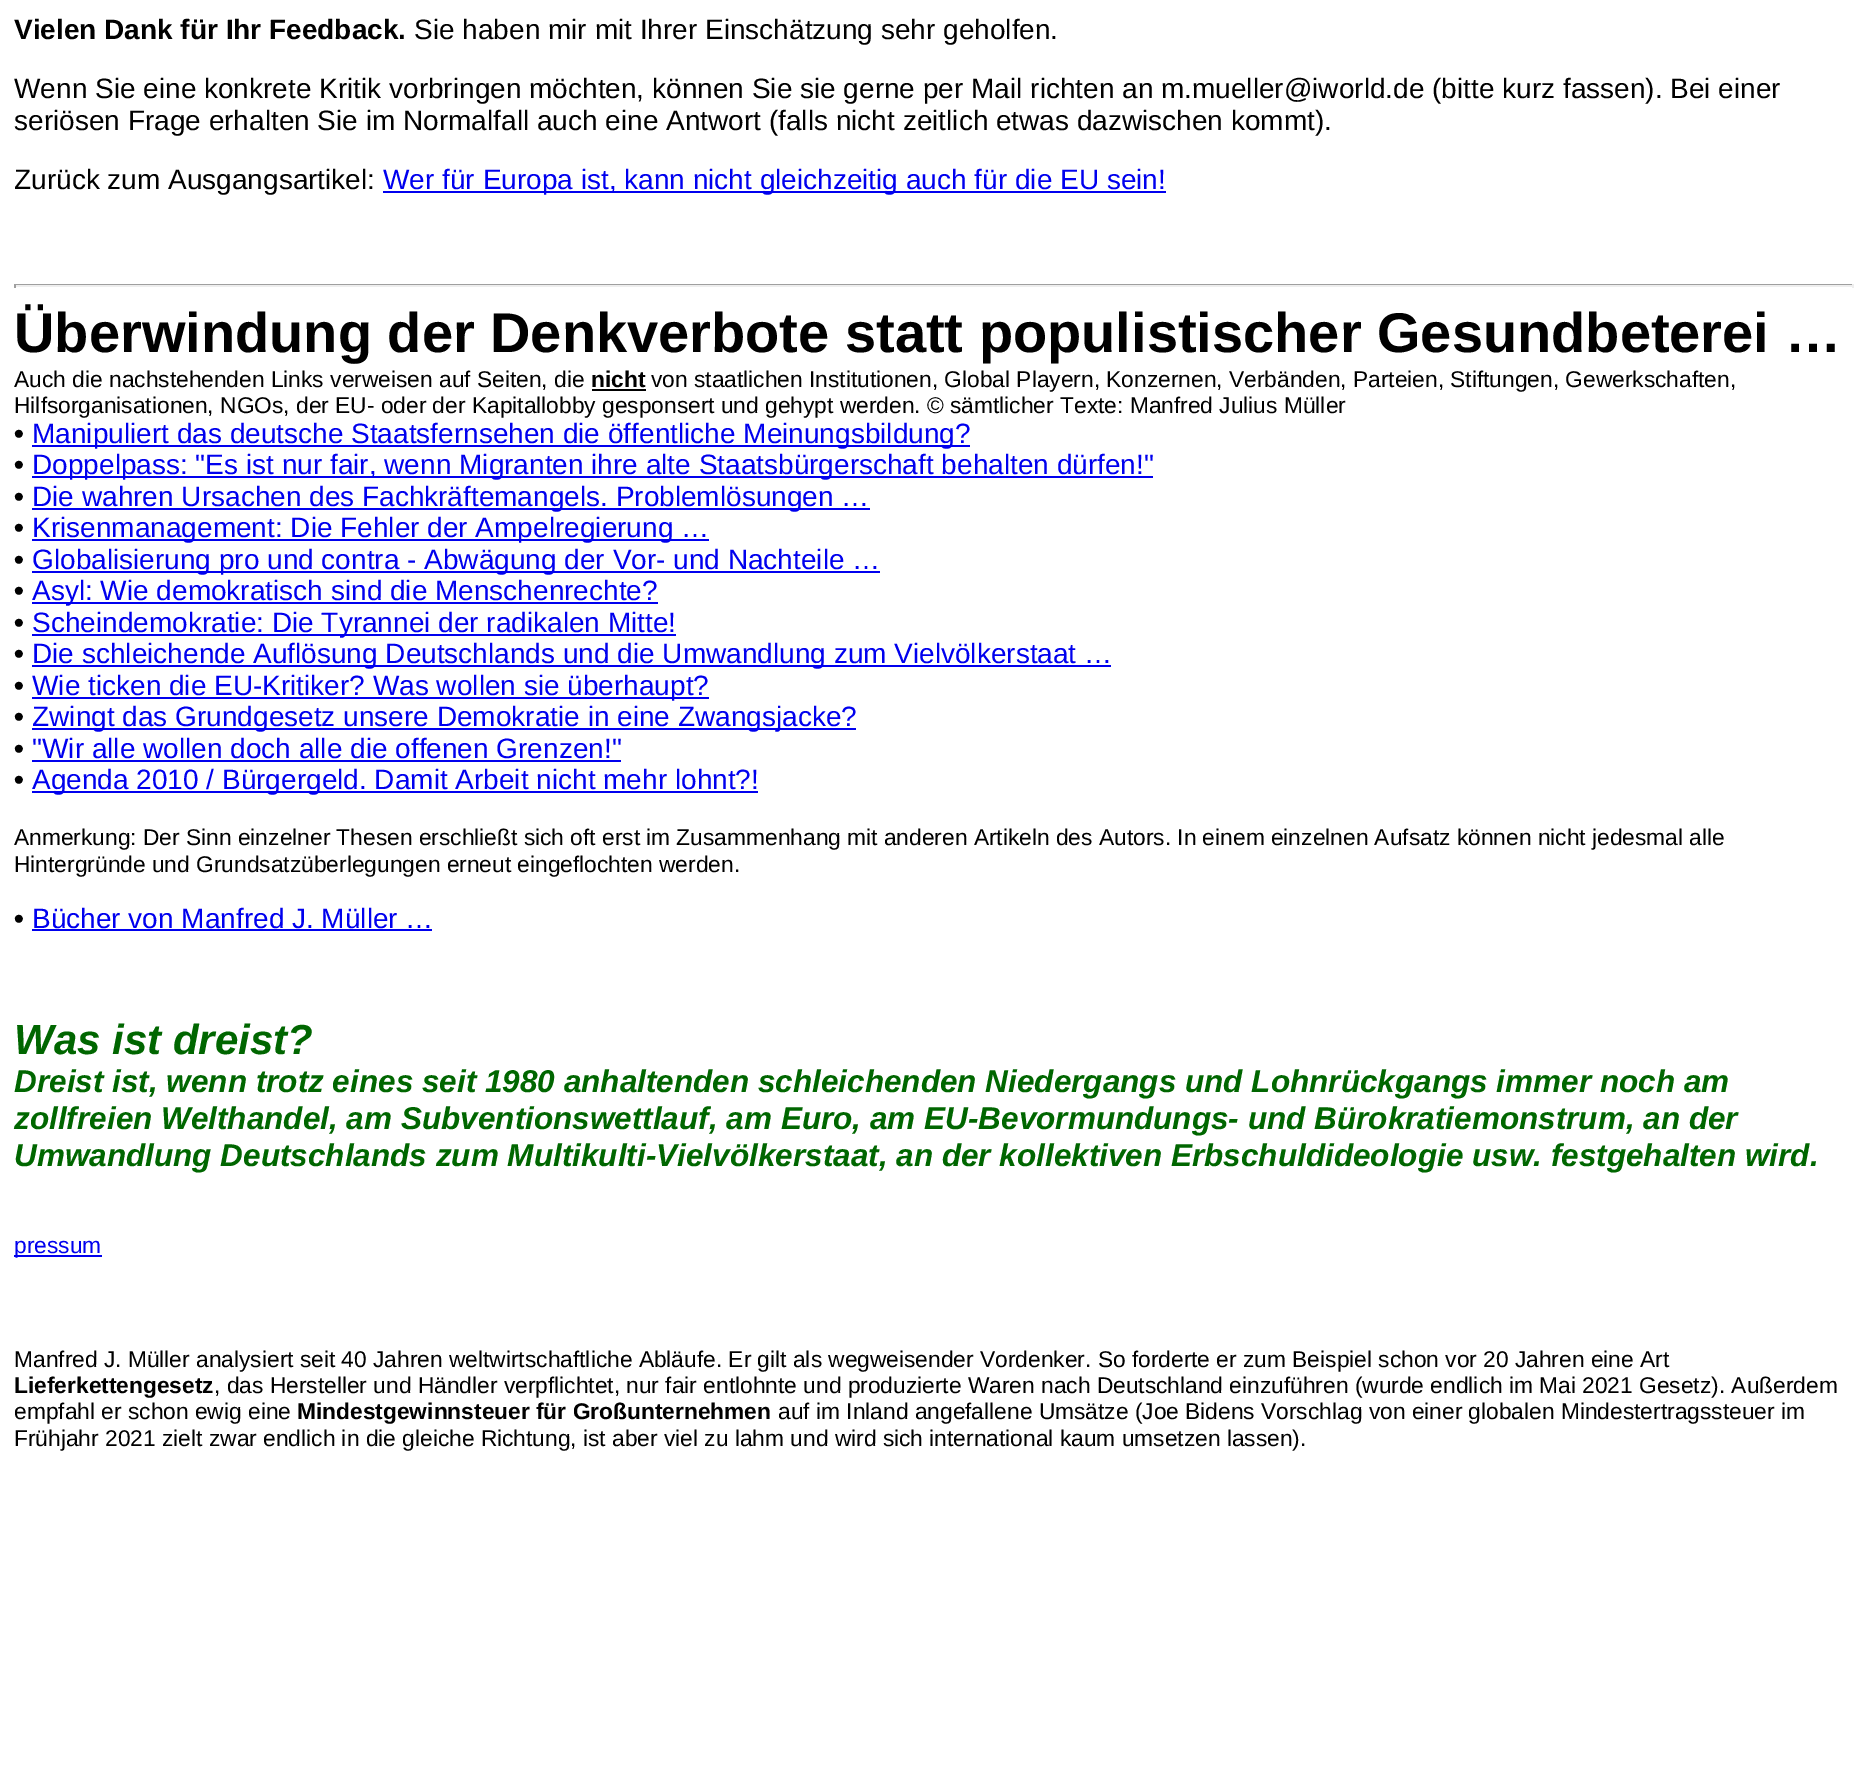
%!PS-Adobe-3.0
%%BoundingBox: 0 0 1866 1770
%%LanguageLevel: 3
%%Pages: 1
%%EndComments
%%BeginProlog
%%EndProlog
%%BeginSetup
<< /PageSize [1866 1770] >> setpagedevice
%%EndSetup
%%Page: 1 1
0 1770 translate 1 -1 scale
4 setmiterlimit
1 setgray
0 0 1866 1770 rectfill
0 0 0.933 setrgbcolor
383 191 783 2 rectfill
0.624 setgray
14 284 1839 1 rectfill
0.933 setgray
1852 284 2 4 rectfill
14 285 1839 2 rectfill
0.624 setgray
14 284 2 4 rectfill
0 setgray
592 389 54 2 rectfill
0 0 0.933 setrgbcolor
32 445 938 2 rectfill
32 476 1121 2 rectfill
32 508 838 2 rectfill
32 539 677 2 rectfill
32 571 848 2 rectfill
32 602 626 2 rectfill
32 634 644 2 rectfill
32 665 1079 2 rectfill
32 697 677 2 rectfill
32 728 824 2 rectfill
32 760 589 2 rectfill
32 791 726 2 rectfill
32 929 400 2 rectfill
14 1255 88 2 rectfill
/LiberationSans-Bold [28 0 0 -28 0 0] selectfont
0 setgray
14 39 moveto (Vielen Dank für Ihr Feedback.) show
/LiberationSans-Regular [28 0 0 -28 0 0] selectfont
414 39 moveto (Sie haben mir mit Ihrer Einschätzung sehr geholfen.) show
14 98 moveto (Wenn Sie eine konkrete Kritik vorbringen möchten, können Sie sie gerne per Mail richten an m.mueller@iworld.de \(bitte kurz fassen\). Bei einer) show
14 130 moveto (seriösen Frage erhalten Sie im Normalfall auch eine Antwort \(falls nicht zeitlich etwas dazwischen kommt\).) show
14 189 moveto (Zurück zum Ausgangsartikel:) show
0 0 0.933 setrgbcolor
383 189 moveto (Wer für Europa ist, kann nicht gleichzeitig auch für die EU sein!) show
/LiberationSans-Bold [56 0 0 -56 0 0] selectfont
0 setgray
14 352 moveto (Überwindung der Denkverbote statt populistischer Gesundbeterei …) show
/LiberationSans-Regular [22.75 0 0 -22.75 0 0] selectfont
14 387 moveto (Auch die nachstehenden Links verweisen auf Seiten, die) show
/LiberationSans-Bold [22.75 0 0 -22.75 0 0] selectfont
591 387 moveto (nicht) show
/LiberationSans-Regular [22.75 0 0 -22.75 0 0] selectfont
651 387 moveto (von staatlichen Institutionen, Global Playern, Konzernen, Verbänden, Parteien, Stiftungen, Gewerkschaften,) show
14 413 moveto (Hilfsorganisationen, NGOs, der EU- oder der Kapitallobby gesponsert und gehypt werden. © sämtlicher Texte: Manfred Julius Müller) show
/LiberationSans-Bold [28 0 0 -28 0 0] selectfont
14 443 moveto (•) show
/LiberationSans-Regular [28 0 0 -28 0 0] selectfont
0 0 0.933 setrgbcolor
32 443 moveto (Manipuliert das deutsche Staatsfernsehen die öffentliche Meinungsbildung?) show
/LiberationSans-Bold [28 0 0 -28 0 0] selectfont
0 setgray
14 474 moveto (•) show
/LiberationSans-Regular [28 0 0 -28 0 0] selectfont
0 0 0.933 setrgbcolor
32 474 moveto (Doppelpass: "Es ist nur fair, wenn Migranten ihre alte Staatsbürgerschaft behalten dürfen!") show
/LiberationSans-Bold [28 0 0 -28 0 0] selectfont
0 setgray
14 506 moveto (•) show
/LiberationSans-Regular [28 0 0 -28 0 0] selectfont
0 0 0.933 setrgbcolor
32 506 moveto (Die wahren Ursachen des Fachkräftemangels. Problemlösungen …) show
/LiberationSans-Bold [28 0 0 -28 0 0] selectfont
0 setgray
14 537 moveto (•) show
/LiberationSans-Regular [28 0 0 -28 0 0] selectfont
0 0 0.933 setrgbcolor
32 537 moveto (Krisenmanagement: Die Fehler der Ampelregierung …) show
/LiberationSans-Bold [28 0 0 -28 0 0] selectfont
0 setgray
14 569 moveto (•) show
/LiberationSans-Regular [28 0 0 -28 0 0] selectfont
0 0 0.933 setrgbcolor
32 569 moveto (Globalisierung pro und contra - Abwägung der Vor- und Nachteile …) show
/LiberationSans-Bold [28 0 0 -28 0 0] selectfont
0 setgray
14 600 moveto (•) show
/LiberationSans-Regular [28 0 0 -28 0 0] selectfont
0 0 0.933 setrgbcolor
32 600 moveto (Asyl: Wie demokratisch sind die Menschenrechte?) show
/LiberationSans-Bold [28 0 0 -28 0 0] selectfont
0 setgray
14 632 moveto (•) show
/LiberationSans-Regular [28 0 0 -28 0 0] selectfont
0 0 0.933 setrgbcolor
32 632 moveto (Scheindemokratie: Die Tyrannei der radikalen Mitte!) show
/LiberationSans-Bold [28 0 0 -28 0 0] selectfont
0 setgray
14 663 moveto (•) show
/LiberationSans-Regular [28 0 0 -28 0 0] selectfont
0 0 0.933 setrgbcolor
32 663 moveto (Die schleichende Auflösung Deutschlands und die Umwandlung zum Vielvölkerstaat …) show
/LiberationSans-Bold [28 0 0 -28 0 0] selectfont
0 setgray
14 695 moveto (•) show
/LiberationSans-Regular [28 0 0 -28 0 0] selectfont
0 0 0.933 setrgbcolor
32 695 moveto (Wie ticken die EU-Kritiker? Was wollen sie überhaupt?) show
/LiberationSans-Bold [28 0 0 -28 0 0] selectfont
0 setgray
14 726 moveto (•) show
/LiberationSans-Regular [28 0 0 -28 0 0] selectfont
0 0 0.933 setrgbcolor
32 726 moveto (Zwingt das Grundgesetz unsere Demokratie in eine Zwangsjacke?) show
/LiberationSans-Bold [28 0 0 -28 0 0] selectfont
0 setgray
14 758 moveto (•) show
/LiberationSans-Regular [28 0 0 -28 0 0] selectfont
0 0 0.933 setrgbcolor
32 758 moveto ("Wir alle wollen doch alle die offenen Grenzen!") show
/LiberationSans-Bold [28 0 0 -28 0 0] selectfont
0 setgray
14 789 moveto (•) show
/LiberationSans-Regular [28 0 0 -28 0 0] selectfont
0 0 0.933 setrgbcolor
32 789 moveto (Agenda 2010 / Bürgergeld. Damit Arbeit nicht mehr lohnt?!) show
/LiberationSans-Regular [22.75 0 0 -22.75 0 0] selectfont
0 setgray
14 845 moveto (Anmerkung: Der Sinn einzelner Thesen erschließt sich oft erst im Zusammenhang mit anderen Artikeln des Autors. In einem einzelnen Aufsatz können nicht jedesmal alle) show
14 872 moveto (Hintergründe und Grundsatzüberlegungen erneut eingeflochten werden.) show
/LiberationSans-Bold [28 0 0 -28 0 0] selectfont
14 928 moveto (•) show
/LiberationSans-Regular [28 0 0 -28 0 0] selectfont
0 0 0.933 setrgbcolor
32 928 moveto (Bücher von Manfred J. Müller …) show
/LiberationSans-BoldItalic [42 0 0 -42 0 0] selectfont
0 0.4 0 setrgbcolor
14 1054 moveto (Was ist dreist?) show
/LiberationSans-BoldItalic [31.5 0 0 -31.5 0 0] selectfont
14 1092 moveto (Dreist ist, wenn trotz eines seit 1980 anhaltenden schleichenden Niedergangs und Lohnrückgangs immer noch am) show
14 1129 moveto (zollfreien Welthandel, am Subventionswettlauf, am Euro, am EU-Bevormundungs- und Bürokratiemonstrum, an der) show
14 1166 moveto (Umwandlung Deutschlands zum Multikulti-Vielvölkerstaat, an der kollektiven Erbschuldideologie usw. festgehalten wird.) show
/LiberationSans-Regular [22.75 0 0 -22.75 0 0] selectfont
0 0 0.933 setrgbcolor
14 1253 moveto (pressum) show
0 setgray
14 1367 moveto (Manfred J. Müller analysiert seit 40 Jahren weltwirtschaftliche Abläufe. Er gilt als wegweisender Vordenker. So forderte er zum Beispiel schon vor 20 Jahren eine Art) show
/LiberationSans-Bold [22.75 0 0 -22.75 0 0] selectfont
14 1393 moveto (Lieferkettengesetz) show
/LiberationSans-Regular [22.75 0 0 -22.75 0 0] selectfont
214 1393 moveto (, das Hersteller und Händler verpflichtet, nur fair entlohnte und produzierte Waren nach Deutschland einzuführen \(wurde endlich im Mai 2021 Gesetz\). Außerdem) show
14 1419 moveto (empfahl er schon ewig eine) show
/LiberationSans-Bold [22.75 0 0 -22.75 0 0] selectfont
297 1419 moveto (Mindestgewinnsteuer für Großunternehmen) show
/LiberationSans-Regular [22.75 0 0 -22.75 0 0] selectfont
778 1419 moveto (auf im Inland angefallene Umsätze \(Joe Bidens Vorschlag von einer globalen Mindestertragssteuer im) show
14 1446 moveto (Frühjahr 2021 zielt zwar endlich in die gleiche Richtung, ist aber viel zu lahm und wird sich international kaum umsetzen lassen\).) show
showpage
%%EOF
